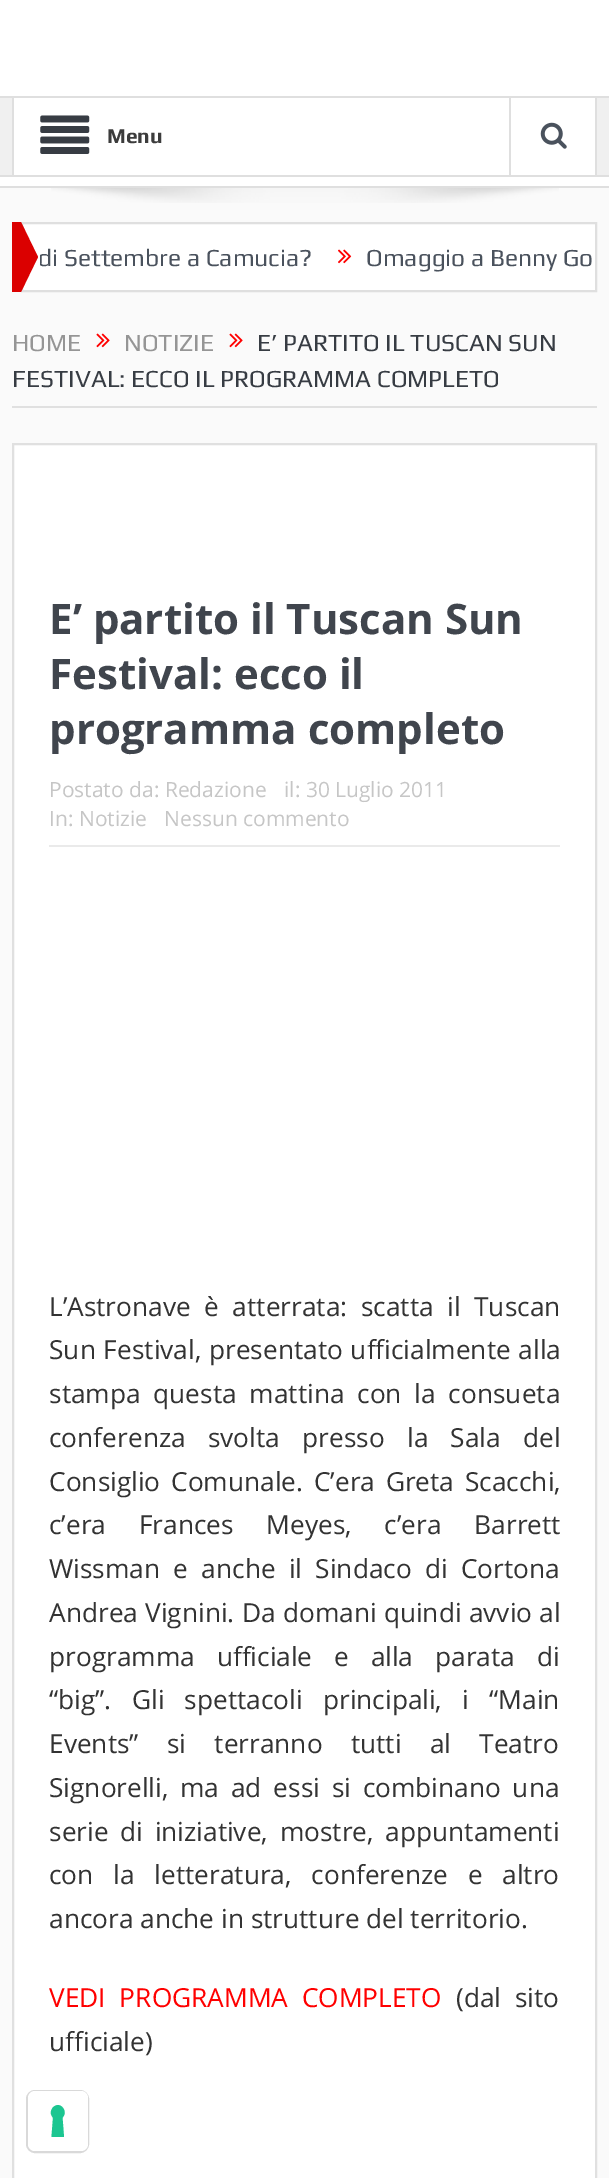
%!PS-Adobe-3.0
%%BoundingBox: 0 0 609 2178
%%LanguageLevel: 3
%%Pages: 1
%%EndComments
%%BeginProlog
/rrect { 5 dict begin { /r /h /w /y /x } { exch def } forall
  x r add y moveto x w add y 2 copy h add r arct x w add y h add x 1 index r arct
  x y h add x y r arct x y 2 copy exch w add exch r arct closepath end } def
/drawimage { 5 dict begin { /h /w /y /x /name } { exch def } forall
  gsave x y translate w h scale
  w h 8 [w 0 0 h 0 0] name (r) file false 3 colorimage grestore end } def
%%EndProlog
%%BeginSetup
<< /PageSize [609 2178] >> setpagedevice
%%EndSetup
%%Page: 1 1
0 2178 translate 1 -1 scale
4 setmiterlimit
1 setgray
0 0 609 2178 rectfill
0.875 setgray
0 96 609 2 rectfill
0 186 609 2 rectfill
0.941 setgray
0 98 609 77 rectfill
0.875 setgray
0 175 609 2 rectfill
1 setgray
14 98 495 77 rectfill
0.875 setgray
12 98 2 77 rectfill
(images/1.raw) 40 115 50 39 drawimage
1 setgray
511 98 84 77 rectfill
0.875 setgray
595 98 2 77 rectfill
509 98 2 77 rectfill
(images/2.raw) 540 122 27 27 drawimage
0.98 setgray
0 188 609 1990 rectfill
(images/3.raw) 51 188 508 15 drawimage
0.859 0 0 setrgbcolor
12 222 9 70 rectfill
1 setgray
newpath 22 223 moveto 596 223 lineto 596 291 lineto 22 291 lineto closepath gsave fill grestore
0.875 setgray
2 setlinewidth
stroke
0.859 0 0 setrgbcolor
newpath 21 292 moveto 21 222 lineto 38 257 lineto closepath fill
(images/4.raw) 338 249 14 15 drawimage
0.878 setgray
12 406 585 2 rectfill
(images/5.raw) 96 333 14 15 drawimage
(images/5.raw) 229 333 14 15 drawimage
1 setgray
newpath 13 444 moveto 596 444 lineto 596 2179 lineto 13 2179 lineto closepath gsave fill grestore
0.878 setgray
stroke
0.918 setgray
49 845 511 2 rectfill
0.851 setgray
27 2091 61 61 8 rrect stroke
1 setgray
28 2091 60 60 7 rrect fill
0.11 0.776 0.569 setrgbcolor
newpath 58 2105 moveto 64 2105.5 67 2113.5 62.5 2117.5 curveto 64 2137 lineto 51.5 2137 lineto 53 2117.5 lineto 48.5 2113.5 51.5 2105.5 58 2105 curveto closepath eofill
/Play-Bold [21 0 0 -21 0 0] selectfont
0.235 setgray
107 143 moveto (Menu) show
gsave
40 224 552 67 rectclip
/Play-Regular [24.5 0 0 -24.5 0 0] selectfont
0.29 0.322 0.365 setrgbcolor
38 266 moveto (di Settembre a Camucia?) show
grestore
/Play-Regular [24.5 0 0 -24.5 0 0] selectfont
0.29 0.322 0.365 setrgbcolor
366 266 moveto (Omaggio a Benny Go) show
0.584 setgray
12 351 moveto (HOME) show
124 351 moveto (NOTIZIE) show
0.216 0.235 0.263 setrgbcolor
257 351 moveto (E’ PARTITO IL TUSCAN SUN) show
12 387 moveto (FESTIVAL: ECCO IL PROGRAMMA COMPLETO) show
/OpenSans-Bold [42 0 0 -42 0 0] selectfont
0.251 0.271 0.302 setrgbcolor
49 634 moveto (E’ partito il Tuscan Sun) show
49 689 moveto (Festival: ecco il) show
49 744 moveto (programma completo) show
/OpenSans-Regular [21 0 0 -21 0 0] selectfont
0.776 setgray
49 797 moveto (Postato da: Redazione) show
284 797 moveto (il: 30 Luglio 2011) show
49 826 moveto (In: Notizie) show
164 826 moveto (Nessun commento) show
/OpenSans-Regular [26.25 0 0 -26.25 0 0] selectfont
0.2 setgray
49 1316 moveto 6.75 0 32 (L’Astronave è atterrata: scatta il Tuscan) widthshow
49 1359 moveto 1 0 32 (Sun Festival, presentato ufficialmente alla) widthshow
49 1403 moveto 6 0 32 (stampa questa mattina con la consueta) widthshow
49 1447 moveto 15.5 0 32 (conferenza svolta presso la Sala del) widthshow
49 1491 moveto 4 0 32 (Consiglio Comunale. C’era Greta Scacchi,) widthshow
49 1534 moveto 26 0 32 (c’era Frances Meyes, c’era Barrett) widthshow
49 1578 moveto 6.5 0 32 (Wissman e anche il Sindaco di Cortona) widthshow
49 1622 moveto 0.5 0 32 (Andrea Vignini. Da domani quindi avvio al) widthshow
49 1666 moveto 15 0 32 (programma ufficiale e alla parata di) widthshow
49 1709 moveto 13.5 0 32 (“big”. Gli spettacoli principali, i “Main) widthshow
49 1753 moveto 21.5 0 32 (Events” si terranno tutti al Teatro) widthshow
49 1797 moveto 5 0 32 (Signorelli, ma ad essi si combinano una) widthshow
49 1841 moveto 5 0 32 (serie di iniziative, mostre, appuntamenti) widthshow
49 1884 moveto 13 0 32 (con la letteratura, conferenze e altro) widthshow
49 1928 moveto (ancora anche in strutture del territorio.) show
1 0 0 setrgbcolor
49 2007 moveto 7 0 32 (VEDI PROGRAMMA COMPLETO) widthshow
0.2 setgray
456 2007 moveto 7 0 32 (\(dal sito) widthshow
49 2051 moveto (ufficiale\)) show
showpage
%%EOF
